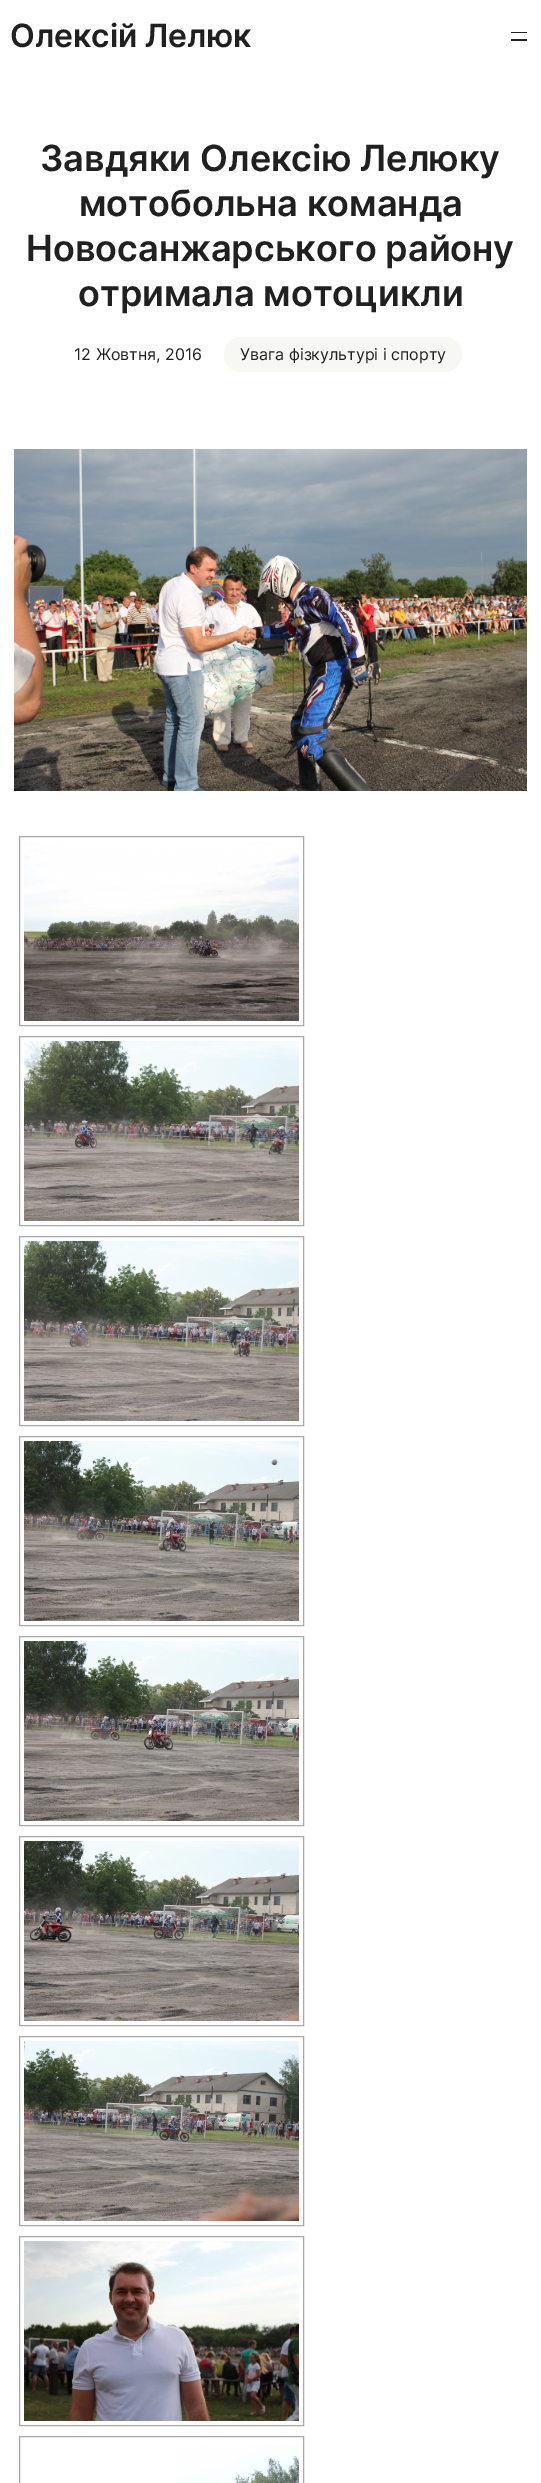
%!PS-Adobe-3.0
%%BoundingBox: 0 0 541 2483
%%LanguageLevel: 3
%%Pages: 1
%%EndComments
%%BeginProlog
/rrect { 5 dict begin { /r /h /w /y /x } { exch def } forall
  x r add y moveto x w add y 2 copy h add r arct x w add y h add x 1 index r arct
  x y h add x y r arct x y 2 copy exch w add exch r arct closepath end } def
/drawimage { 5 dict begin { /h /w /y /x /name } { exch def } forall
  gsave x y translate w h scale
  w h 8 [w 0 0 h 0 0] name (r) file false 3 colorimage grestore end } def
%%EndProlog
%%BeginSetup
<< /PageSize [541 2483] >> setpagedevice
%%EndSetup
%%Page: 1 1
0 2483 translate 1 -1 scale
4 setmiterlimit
1 setgray
0 0 541 2483 rectfill
0.125 setgray
511 32 16 1 rectfill
511 39 16 2 rectfill
0.969 0.969 0.953 setrgbcolor
224 337 238 35 17.5 rrect fill
(images/1.raw) 14 449 513 342 drawimage
0.663 setgray
19.5 836.5 284 189 rectstroke
(images/2.raw) 24 842 275 179 drawimage
19.5 1036.5 284 189 rectstroke
(images/3.raw) 24 1041 275 180 drawimage
19.5 1236.5 284 189 rectstroke
(images/4.raw) 24 1241 275 180 drawimage
19.5 1436.5 284 189 rectstroke
(images/5.raw) 24 1441 275 180 drawimage
19.5 1636.5 284 189 rectstroke
(images/6.raw) 24 1641 275 180 drawimage
19.5 1836.5 284 189 rectstroke
(images/7.raw) 24 1841 275 180 drawimage
19.5 2036.5 284 189 rectstroke
(images/8.raw) 24 2041 275 180 drawimage
19.5 2236.5 284 189 rectstroke
(images/9.raw) 24 2241 275 180 drawimage
19.5 2436.5 284 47 rectstroke
(images/10.raw) 176 2445 123 38 drawimage
/Inter-SemiBold [32 0 0 -32 0 0] selectfont
0.125 setgray
10 47 moveto (Олексій Лелюк) show
/Inter-SemiBold [36 0 0 -36 0 0] selectfont
40 171 moveto (Завдяки Олексію Лелюку) show
79 216 moveto (мотобольна команда) show
26 261 moveto (Новосанжарського району) show
78 306 moveto (отримала мотоцикли) show
/Inter-Regular [16 0 0 -16 0 0] selectfont
74 360 moveto (12 Жовтня, 2016) show
240 360 moveto (Увага фізкультурі і спорту) show
showpage
%%EOF
